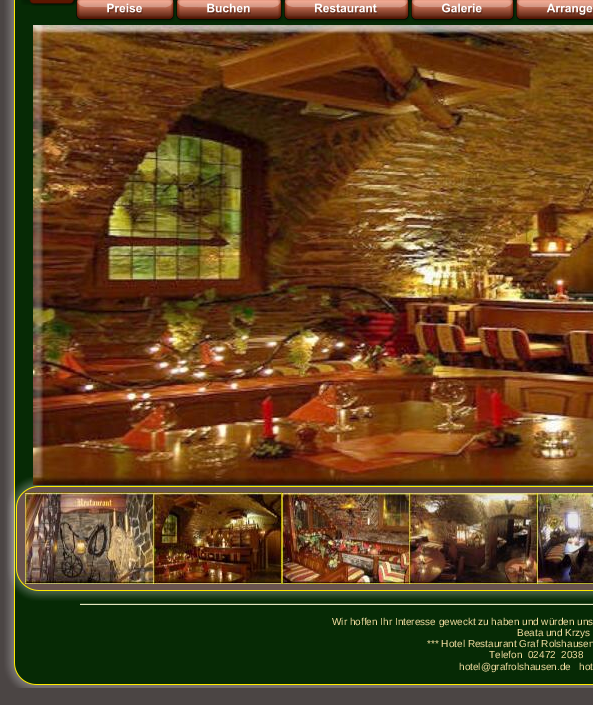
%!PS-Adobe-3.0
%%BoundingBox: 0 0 593 705
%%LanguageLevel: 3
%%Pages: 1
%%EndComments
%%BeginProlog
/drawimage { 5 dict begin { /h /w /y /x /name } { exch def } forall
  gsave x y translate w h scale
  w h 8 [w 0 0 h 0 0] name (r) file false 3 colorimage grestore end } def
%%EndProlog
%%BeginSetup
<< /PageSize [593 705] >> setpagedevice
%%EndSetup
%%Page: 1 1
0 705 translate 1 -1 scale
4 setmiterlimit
0.294 0.271 0.267 setrgbcolor
0 0 593 705 rectfill
(images/1.raw) 4 0 589 688 drawimage
(images/2.raw) 21 0 496 5 drawimage
(images/3.raw) 29 0 47 6 drawimage
(images/4.raw) 76 0 99 22 drawimage
(images/5.raw) 176 0 107 22 drawimage
(images/6.raw) 284 0 126 22 drawimage
(images/7.raw) 411 0 104 22 drawimage
(images/8.raw) 516 0 77 22 drawimage
(images/10.raw) 7 477 586 124 drawimage
(images/9.raw) 33 25 560 460 drawimage
(images/11.raw) 25 492 130 92 drawimage
(images/12.raw) 155 492 128 92 drawimage
(images/13.raw) 281 493 128 91 drawimage
(images/14.raw) 409 493 127 91 drawimage
(images/15.raw) 536 493 57 91 drawimage
(images/16.raw) 80 603 513 2 drawimage
/LiberationSans-Regular [10 0 0 -10 0 0] selectfont
0.961 0.875 0.635 setrgbcolor
332 625 moveto (Wir hoffen Ihr Interesse geweckt zu haben und würden uns) show
517 636 moveto (Beata und Krzys) show
427 647 moveto (*** Hotel Restaurant Graf Rolshausen) show
489 658 moveto (Telefon  02472  2038) show
459 670 moveto (hotel@grafrolshausen.de   hot) show
showpage
%%EOF
